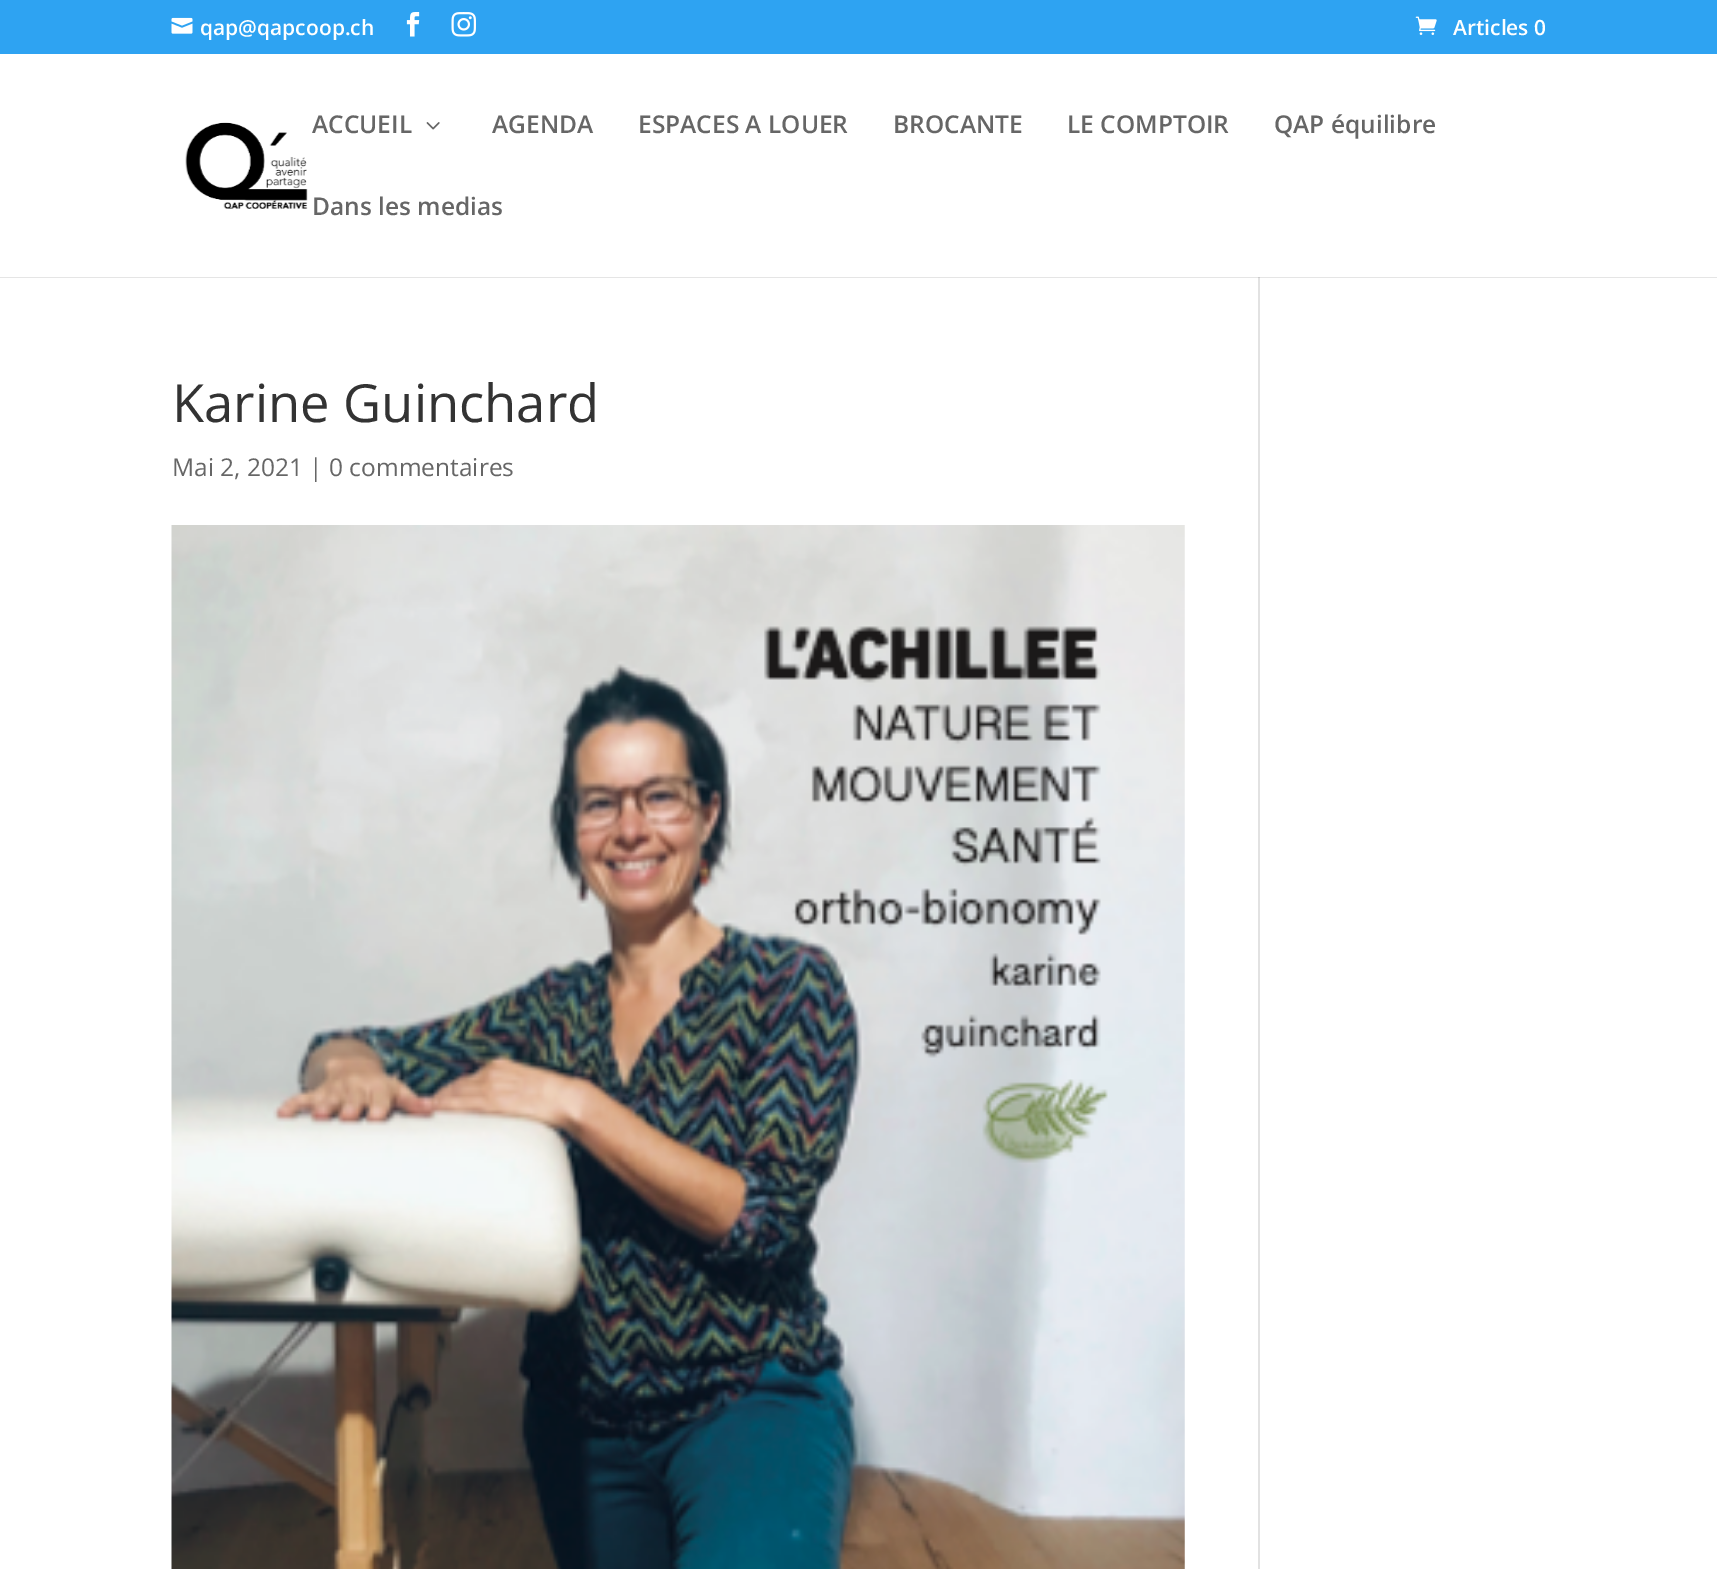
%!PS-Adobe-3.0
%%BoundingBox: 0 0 1717 1569
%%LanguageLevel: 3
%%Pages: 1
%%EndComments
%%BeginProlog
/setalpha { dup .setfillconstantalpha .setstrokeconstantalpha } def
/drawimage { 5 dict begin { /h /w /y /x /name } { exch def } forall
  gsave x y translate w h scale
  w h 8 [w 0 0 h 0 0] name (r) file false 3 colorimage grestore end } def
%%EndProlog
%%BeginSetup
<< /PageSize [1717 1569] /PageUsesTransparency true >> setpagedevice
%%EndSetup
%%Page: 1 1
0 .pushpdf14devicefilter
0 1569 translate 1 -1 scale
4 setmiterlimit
1 setgray
0 0 1717 1569 rectfill
0.18 0.639 0.949 setrgbcolor
0 0 1717 54 rectfill
(images/1.raw) 171 17 22 17 drawimage
(images/2.raw) 406 12 14 25 drawimage
(images/3.raw) 451 12 25 25 drawimage
(images/4.raw) 1415 16 22 19 drawimage
0.886 setgray
1258 275 2 1294 rectfill
0.1 setalpha
0 setgray
newpath 0 276 moveto 0 278 lineto 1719 278 lineto 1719 56 lineto 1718 56 lineto 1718 276 lineto closepath fill
1 setalpha
1 setgray
0 275 1717 2 rectfill
(images/5.raw) 185 122 123 87 drawimage
(images/6.raw) 426 122 14 8 drawimage
(images/7.raw) 171 525 1014 1044 drawimage
/OpenSans-SemiBold [21 0 0 -21 0 0] selectfont
200 35 moveto (qap@qapcoop.ch) show
1453 35 moveto (Articles 0) show
/OpenSans-SemiBold [24.5 0 0 -24.5 0 0] selectfont
0.4 setgray
312 133 moveto (ACCUEIL) show
492 133 moveto (AGENDA) show
638 133 moveto (ESPACES A LOUER) show
893 133 moveto (BROCANTE) show
1067 133 moveto (LE COMPTOIR) show
1274 133 moveto (QAP équilibre) show
312 215 moveto (Dans les medias) show
/OpenSans-Regular [52.5 0 0 -52.5 0 0] selectfont
0.2 setgray
172 422 moveto (Karine Guinchard) show
/OpenSans-Regular [24.5 0 0 -24.5 0 0] selectfont
0.4 setgray
172 476 moveto (Mai 2, 2021 | 0 commentaires) show
.poppdf14devicefilter showpage
%%EOF
